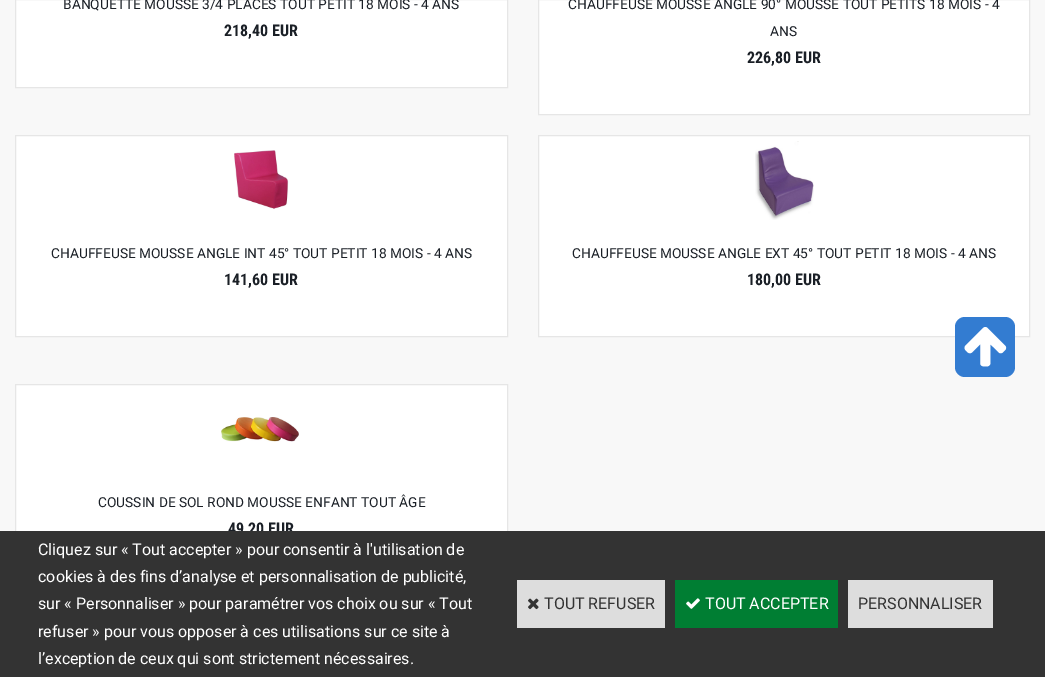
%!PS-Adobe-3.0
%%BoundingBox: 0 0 1045 677
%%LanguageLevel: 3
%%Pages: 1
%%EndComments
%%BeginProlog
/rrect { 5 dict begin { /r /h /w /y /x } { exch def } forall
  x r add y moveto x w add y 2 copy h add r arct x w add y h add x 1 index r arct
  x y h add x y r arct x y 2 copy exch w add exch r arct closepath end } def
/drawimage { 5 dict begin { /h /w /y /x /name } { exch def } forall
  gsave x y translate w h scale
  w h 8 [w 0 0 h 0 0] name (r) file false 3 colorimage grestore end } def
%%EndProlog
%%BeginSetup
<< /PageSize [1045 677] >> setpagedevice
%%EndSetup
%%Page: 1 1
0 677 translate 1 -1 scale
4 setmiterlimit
0.973 setgray
0 0 1045 677 rectfill
1 setgray
newpath 15.5 -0.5 moveto 507.5 -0.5 lineto 507.5 87.5 lineto 15.5 87.5 lineto closepath gsave fill grestore
0.902 setgray
stroke
1 setgray
newpath 538.5 -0.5 moveto 1029.5 -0.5 lineto 1029.5 114.5 lineto 538.5 114.5 lineto closepath gsave fill grestore
0.902 setgray
stroke
1 setgray
newpath 15.5 135.5 moveto 507.5 135.5 lineto 507.5 336.5 lineto 15.5 336.5 lineto closepath gsave fill grestore
0.902 setgray
stroke
(images/1.raw) 234 150 55 59 drawimage
1 setgray
newpath 538.5 135.5 moveto 1029.5 135.5 lineto 1029.5 336.5 lineto 538.5 336.5 lineto closepath gsave fill grestore
0.902 setgray
stroke
(images/2.raw) 755 141 59 79 drawimage
1 setgray
16 385 491 146 rectfill
0.902 setgray
15.5 384.5 492 201 rectstroke
(images/3.raw) 221 417 78 25 drawimage
0.2 0.486 0.82 setrgbcolor
955 317 60 60 10 rrect fill
(images/4.raw) 964 327 43 40 drawimage
/Roboto-Regular [13.75 0 0 -13.75 0 0] selectfont
0.102 0.122 0.149 setrgbcolor
63 9 moveto (BANQUETTE MOUSSE 3/4 PLACES TOUT PETIT 18 MOIS - 4 ANS) show
/RobotoCondensed-Bold [16 0 0 -16 0 0] selectfont
224 36 moveto (218,40 EUR) show
/Roboto-Regular [13.75 0 0 -13.75 0 0] selectfont
568 9 moveto (CHAUFFEUSE MOUSSE ANGLE 90° MOUSSE TOUT PETITS 18 MOIS - 4) show
770 36 moveto (ANS) show
/RobotoCondensed-Bold [16 0 0 -16 0 0] selectfont
747 63 moveto (226,80 EUR) show
/Roboto-Regular [13.75 0 0 -13.75 0 0] selectfont
51 258 moveto (CHAUFFEUSE MOUSSE ANGLE INT 45° TOUT PETIT 18 MOIS - 4 ANS) show
/RobotoCondensed-Bold [16 0 0 -16 0 0] selectfont
224 285 moveto (141,60 EUR) show
/Roboto-Regular [13.75 0 0 -13.75 0 0] selectfont
572 258 moveto (CHAUFFEUSE MOUSSE ANGLE EXT 45° TOUT PETIT 18 MOIS - 4 ANS) show
/RobotoCondensed-Bold [16 0 0 -16 0 0] selectfont
747 285 moveto (180,00 EUR) show
/Roboto-Regular [13.75 0 0 -13.75 0 0] selectfont
98 507 moveto (COUSSIN DE SOL ROND MOUSSE ENFANT TOUT ÂGE) show
/RobotoCondensed-Bold [16 0 0 -16 0 0] selectfont
228 534 moveto (49,20 EUR) show
0.2 setgray
0 531 1045 146 rectfill
/Roboto-Regular [16 0 0 -16 0 0] selectfont
1 setgray
38 555 moveto (Cliquez sur « Tout accepter » pour consentir à l'utilisation de) show
38 582 moveto (cookies à des fins d’analyse et personnalisation de publicité,) show
38 609 moveto (sur « Personnaliser » pour paramétrer vos choix ou sur « Tout) show
38 637 moveto (refuser » pour vous opposer à ces utilisations sur ce site à) show
38 664 moveto (l’exception de ceux qui sont strictement nécessaires.) show
0.867 setgray
517 580 148 48 rectfill
(images/5.raw) 528 598 11 12 drawimage
0.2 setgray
544 609 moveto (TOUT REFUSER) show
0 0.494 0.2 setrgbcolor
675 580 163 48 rectfill
(images/6.raw) 686 598 14 11 drawimage
1 setgray
705 609 moveto (TOUT ACCEPTER) show
0.867 setgray
848 580 145 48 rectfill
0.2 setgray
858 609 moveto (PERSONNALISER) show
showpage
%%EOF
